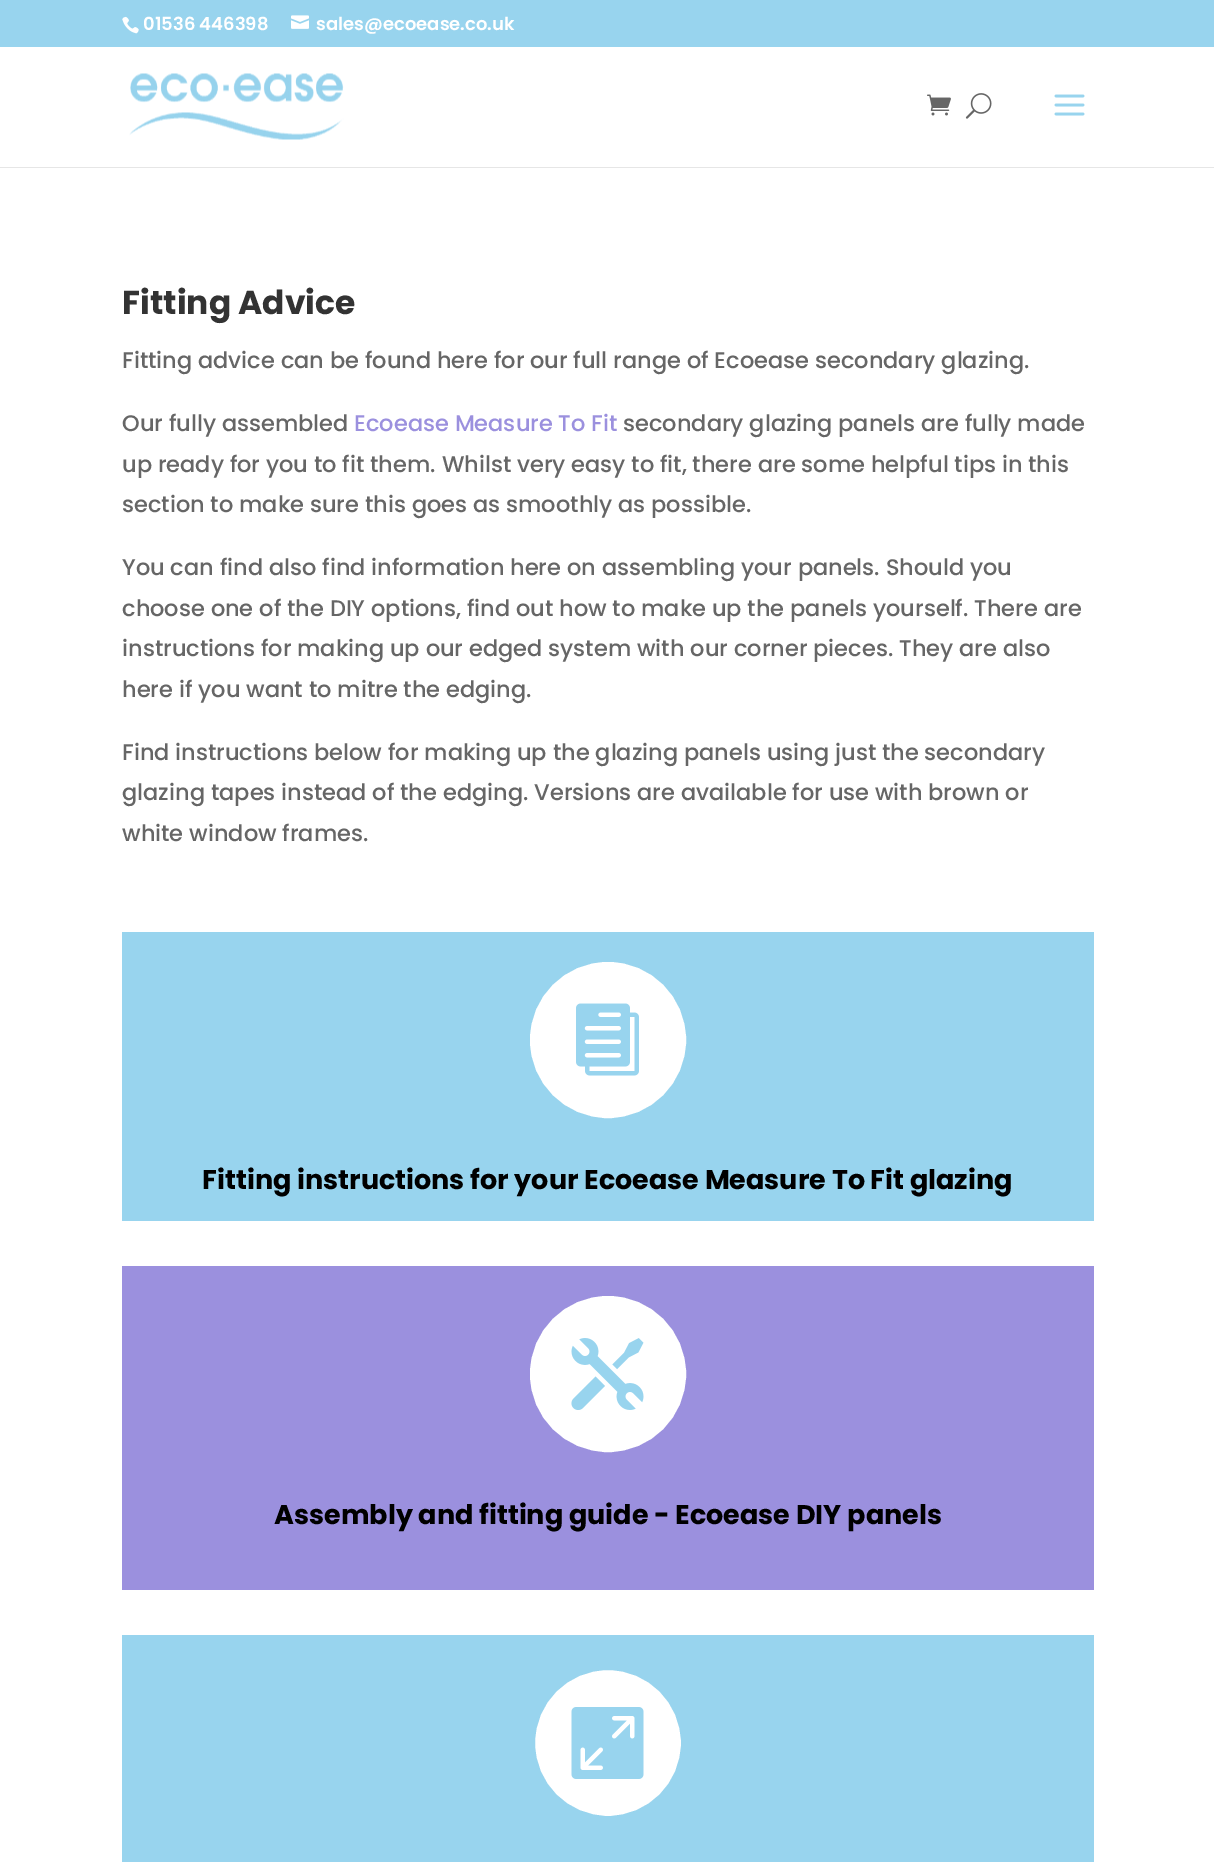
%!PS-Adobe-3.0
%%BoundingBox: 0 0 1214 1862
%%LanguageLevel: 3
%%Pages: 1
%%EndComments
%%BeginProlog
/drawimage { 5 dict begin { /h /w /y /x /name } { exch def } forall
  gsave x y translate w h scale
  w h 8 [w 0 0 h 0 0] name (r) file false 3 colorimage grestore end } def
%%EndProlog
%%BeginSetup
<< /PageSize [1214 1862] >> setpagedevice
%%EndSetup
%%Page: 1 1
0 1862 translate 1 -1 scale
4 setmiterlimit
1 setgray
0 0 1214 1862 rectfill
0.596 0.831 0.933 setrgbcolor
0 0 1214 47 rectfill
(images/1.raw) 122 16 17 18 drawimage
(images/2.raw) 291 15 18 14 drawimage
0.902 setgray
0 167 1214 1 rectfill
(images/3.raw) 129 73 215 67 drawimage
(images/4.raw) 927 94 24 22 drawimage
(images/5.raw) 965 93 27 26 drawimage
(images/6.raw) 1054 94 31 22 drawimage
0.596 0.831 0.933 setrgbcolor
122 932 972 289 rectfill
1 setgray
newpath 608 1040 75.5 0 360 arc closepath gsave fill grestore
5 setlinewidth
stroke
(images/7.raw) 576 1003 63 73 drawimage
0.608 0.565 0.871 setrgbcolor
122 1266 972 324 rectfill
1 setgray
newpath 608 1374 75.5 0 360 arc closepath gsave fill grestore
stroke
(images/8.raw) 571 1338 73 72 drawimage
0.596 0.831 0.933 setrgbcolor
122 1635 972 227 rectfill
1 setgray
newpath 608 1743 75.5 0 360 arc closepath gsave fill grestore
0.596 0.831 0.933 setrgbcolor
stroke
(images/9.raw) 571 1707 73 72 drawimage
/Poppins-SemiBold [18 0 0 -18 0 0] selectfont
1 setgray
143 30 moveto (01536 446398) show
316 30 moveto (sales@ecoease.co.uk) show
/Poppins-Bold [33 0 0 -33 0 0] selectfont
0.2 setgray
122 314 moveto (Fitting Advice) show
/Poppins-Medium [22.5 0 0 -22.5 0 0] selectfont
0.4 setgray
122 368 moveto (Fitting advice can be found here for our full range of Ecoease secondary glazing.) show
122 431 moveto (Our fully assembled) show
0.608 0.565 0.871 setrgbcolor
354 431 moveto (Ecoease Measure To Fit) show
0.4 setgray
623 431 moveto (secondary glazing panels are fully made) show
122 472 moveto (up ready for you to fit them. Whilst very easy to fit, there are some helpful tips in this) show
122 512 moveto (section to make sure this goes as smoothly as possible.) show
122 575 moveto (You can find also find information here on assembling your panels. Should you) show
122 616 moveto (choose one of the DIY options, find out how to make up the panels yourself. There are) show
122 656 moveto (instructions for making up our edged system with our corner pieces. They are also) show
122 697 moveto (here if you want to mitre the edging.) show
122 760 moveto (Find instructions below for making up the glazing panels using just the secondary) show
122 800 moveto (glazing tapes instead of the edging. Versions are available for use with brown or) show
122 841 moveto (white window frames.) show
/Poppins-Bold [27 0 0 -27 0 0] selectfont
0 setgray
202 1189 moveto (Fitting instructions for your Ecoease Measure To Fit glazing) show
274 1524 moveto (Assembly and fitting guide - Ecoease DIY panels) show
showpage
%%EOF
